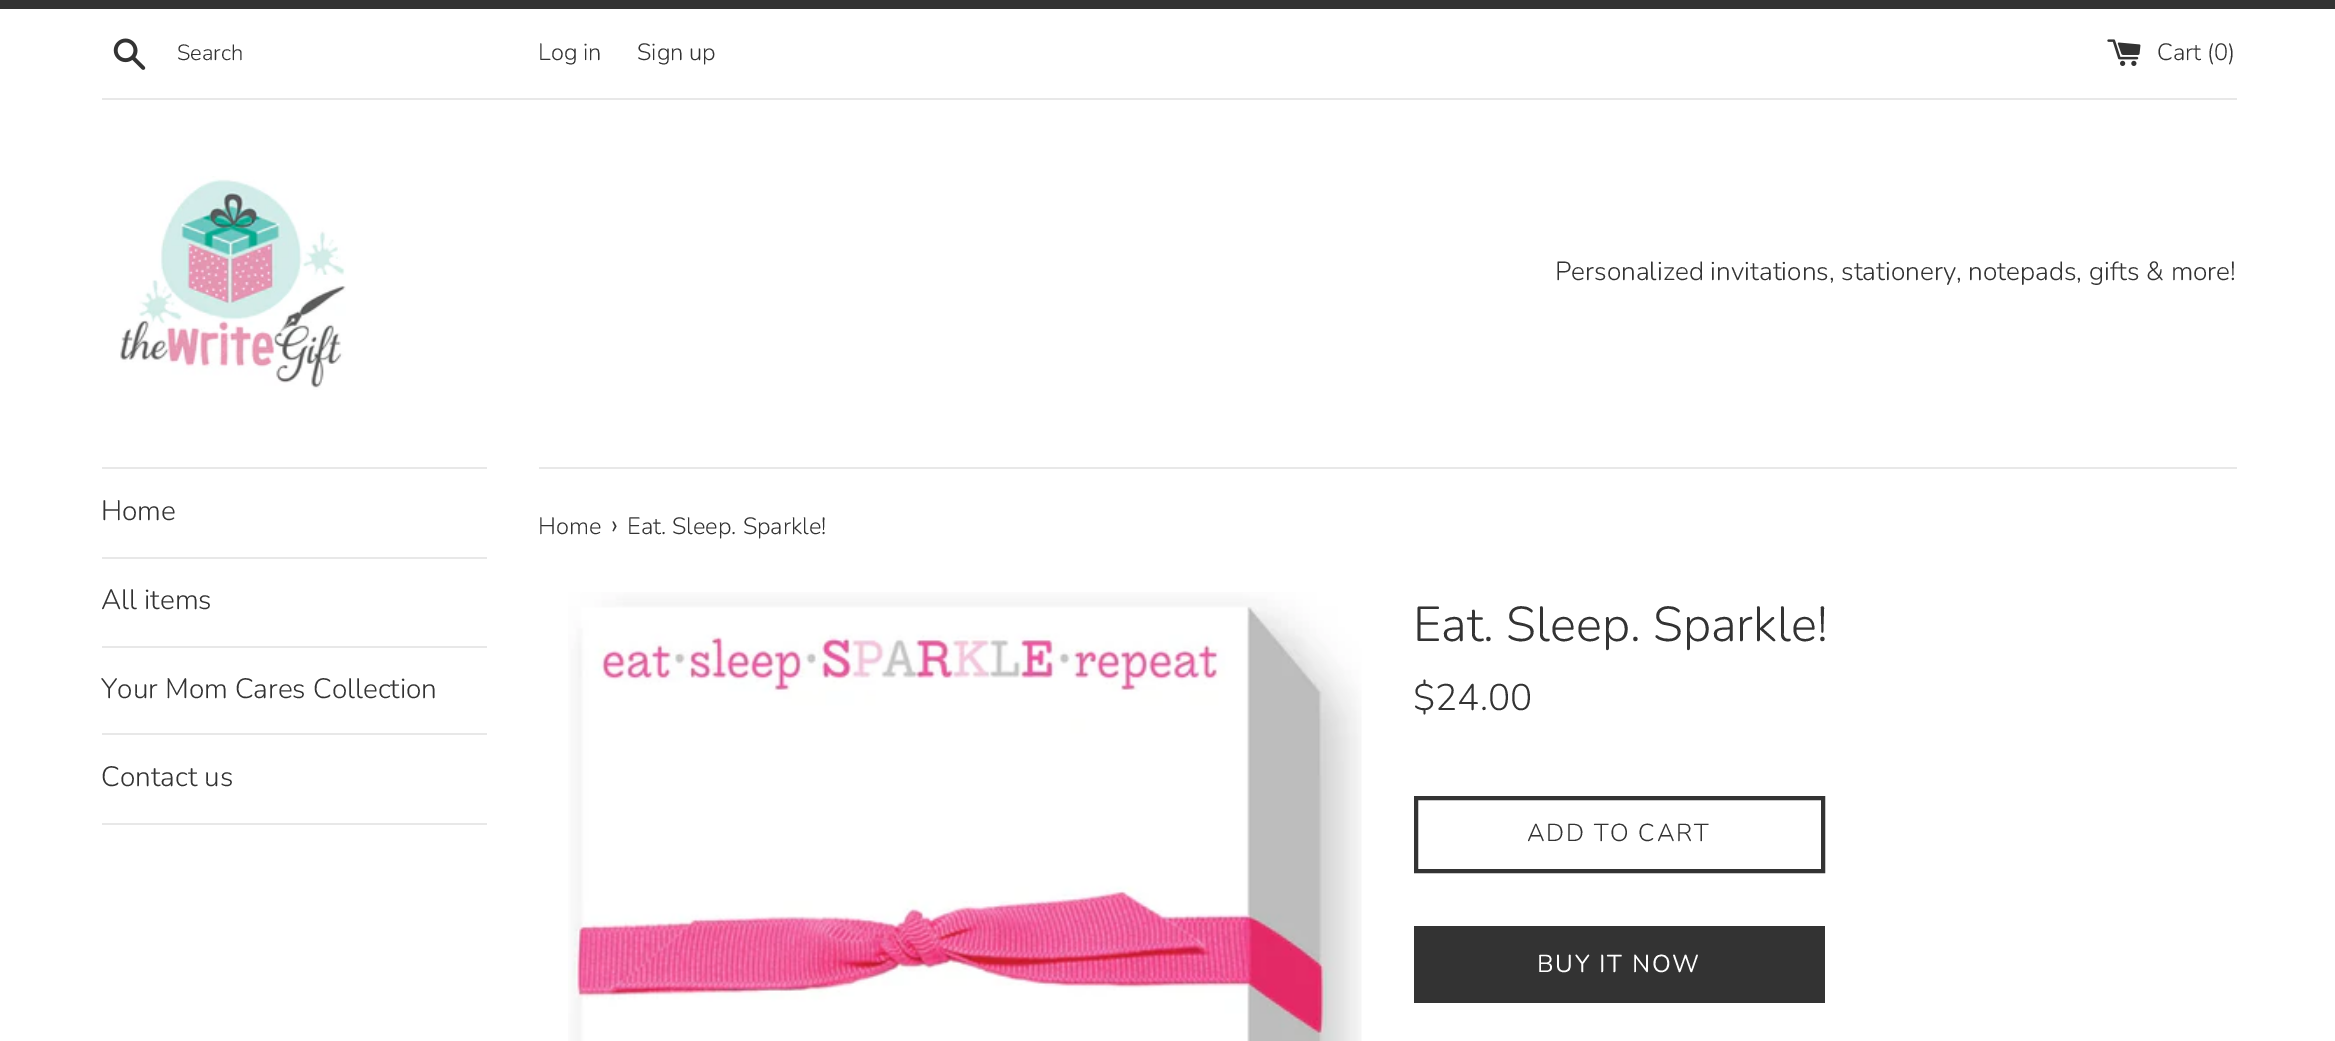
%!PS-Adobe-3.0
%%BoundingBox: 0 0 2335 1041
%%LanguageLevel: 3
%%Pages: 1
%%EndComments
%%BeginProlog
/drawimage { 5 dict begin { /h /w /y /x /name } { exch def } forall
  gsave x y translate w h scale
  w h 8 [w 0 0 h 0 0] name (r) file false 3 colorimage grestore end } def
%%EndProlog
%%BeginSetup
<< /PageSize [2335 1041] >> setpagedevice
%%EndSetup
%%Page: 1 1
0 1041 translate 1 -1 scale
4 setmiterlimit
1 setgray
0 0 2335 1041 rectfill
0.2 setgray
0 0 2335 9 rectfill
(images/1.raw) 113 38 33 32 drawimage
(images/2.raw) 2107 39 34 27 drawimage
0.91 setgray
102 98 2135 2 rectfill
(images/3.raw) 120 176 226 214 drawimage
102 467 385 2 rectfill
102 557 385 2 rectfill
102 646 385 2 rectfill
102 733 385 2 rectfill
102 823 385 2 rectfill
539 467 1698 2 rectfill
(images/4.raw) 568 592 794 449 drawimage
0.2 setgray
4 setlinewidth
1416 798 407 73 rectstroke
1414 926 411 77 rectfill
/Nunito-Light [22 0 0 -22 0 0] selectfont
177 60 moveto (Search) show
/Nunito-Light [23.6 0 0 -23.6 0 0] selectfont
538 60 moveto (Log in) show
637 60 moveto (Sign up) show
2157 60 moveto (Cart \(0\)) show
/Nunito-Light [26.25 0 0 -26.25 0 0] selectfont
1555 280 moveto (Personalized invitations, stationery, notepads, gifts & more!) show
/Nunito-Light [28 0 0 -28 0 0] selectfont
101 520 moveto (Home) show
101 609 moveto (All items) show
101 698 moveto (Your Mom Cares Collection) show
101 786 moveto (Contact us) show
/Nunito-Light [23.6 0 0 -23.6 0 0] selectfont
538 534 moveto (Home) show
/Nunito-Light [29 0 0 -29 0 0] selectfont
611 534 moveto (›) show
/Nunito-Light [23.6 0 0 -23.6 0 0] selectfont
627 534 moveto (Eat. Sleep. Sparkle!) show
/Nunito-Light [49 0 0 -49 0 0] selectfont
1413 641 moveto (Eat. Sleep. Sparkle!) show
/Nunito-Light [37 0 0 -37 0 0] selectfont
1413 710 moveto ($24.00) show
/Nunito-Light [24.5 0 0 -24.5 0 0] selectfont
1527 841 moveto 1.75 0 (ADD TO CART) ashow
/Nunito-Regular [24.5 0 0 -24.5 0 0] selectfont
1 setgray
1537 972 moveto 1.75 0 (BUY IT NOW) ashow
showpage
%%EOF
